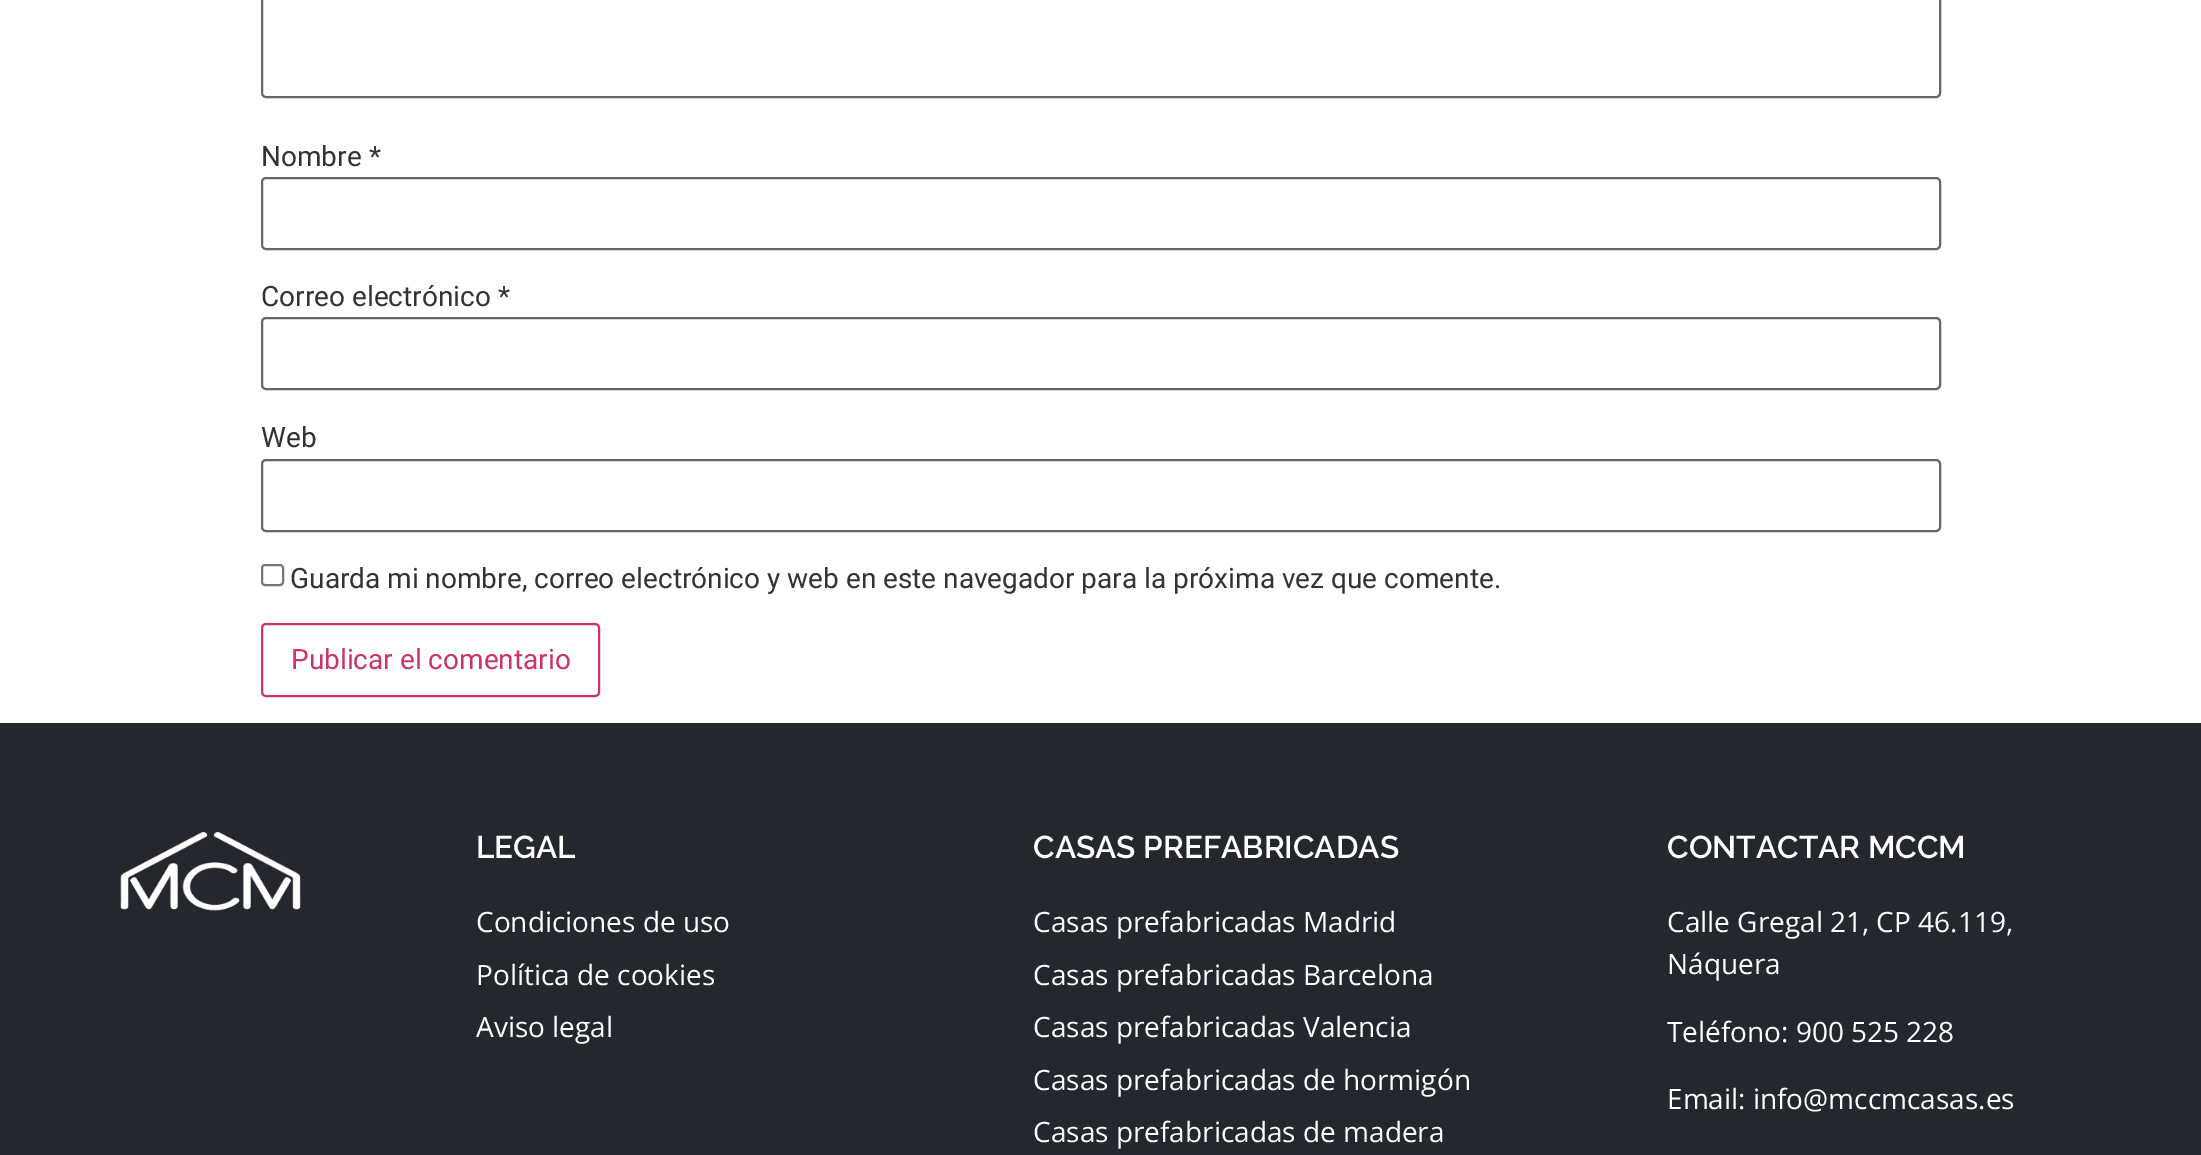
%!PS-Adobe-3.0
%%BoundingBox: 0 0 2201 1155
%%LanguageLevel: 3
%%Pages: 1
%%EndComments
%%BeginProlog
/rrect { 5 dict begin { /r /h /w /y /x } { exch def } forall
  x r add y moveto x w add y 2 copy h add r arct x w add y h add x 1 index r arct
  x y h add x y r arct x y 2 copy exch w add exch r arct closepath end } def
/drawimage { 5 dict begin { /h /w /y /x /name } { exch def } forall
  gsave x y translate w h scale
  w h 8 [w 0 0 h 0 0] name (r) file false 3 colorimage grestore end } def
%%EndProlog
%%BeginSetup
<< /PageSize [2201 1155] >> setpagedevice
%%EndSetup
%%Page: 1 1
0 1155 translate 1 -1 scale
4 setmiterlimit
1 setgray
0 0 2201 1155 rectfill
0.4 setgray
2 setlinewidth
262 -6 1678 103 4 rrect stroke
262 178 1678 71 4 rrect stroke
262 318 1678 71 4 rrect stroke
262 460 1678 71 4 rrect stroke
0.463 setgray
262 565 21 20 3 rrect stroke
0.8 0.2 0.4 setrgbcolor
262 624 337 72 4 rrect stroke
0.141 0.153 0.176 setrgbcolor
0 723 2201 432 rectfill
(images/1.raw) 120 832 181 79 drawimage
/Roboto-Regular [28 0 0 -28 0 0] selectfont
0.2 setgray
261 166 moveto (Nombre *) show
261 306 moveto (Correo electrónico *) show
261 447 moveto (Web) show
290 588 moveto (Guarda mi nombre, correo electrónico y web en este navegador para la próxima vez que comente.) show
0.8 0.2 0.4 setrgbcolor
291 669 moveto (Publicar el comentario) show
/Raleway-SemiBold [31.5 0 0 -31.5 0 0] selectfont
1 setgray
476 858 moveto (LEGAL) show
/OpenSans-Regular [28 0 0 -28 0 0] selectfont
476 932 moveto (Condiciones de uso) show
476 985 moveto (Política de cookies) show
476 1037 moveto (Aviso legal) show
/Raleway-SemiBold [31.5 0 0 -31.5 0 0] selectfont
1033 858 moveto (CASAS PREFABRICADAS) show
/OpenSans-Regular [28 0 0 -28 0 0] selectfont
1033 932 moveto (Casas prefabricadas Madrid) show
1033 985 moveto (Casas prefabricadas Barcelona) show
1033 1037 moveto (Casas prefabricadas Valencia) show
1033 1090 moveto (Casas prefabricadas de hormigón) show
1033 1142 moveto (Casas prefabricadas de madera) show
/Raleway-SemiBold [31.5 0 0 -31.5 0 0] selectfont
1667 858 moveto (CONTACTAR MCCM) show
/OpenSans-Regular [28 0 0 -28 0 0] selectfont
1667 932 moveto (Calle Gregal 21, CP 46.119,) show
1667 974 moveto (Náquera) show
1667 1042 moveto (Teléfono: 900 525 228) show
1667 1109 moveto (Email: info@mccmcasas.es) show
showpage
%%EOF
